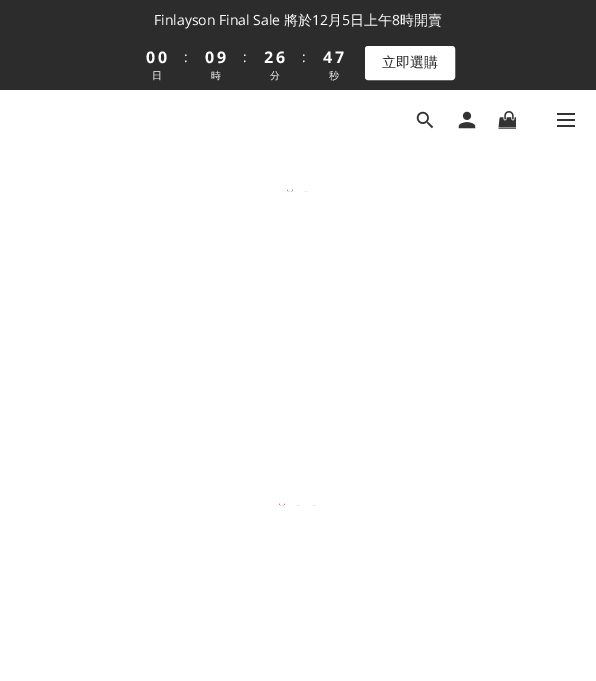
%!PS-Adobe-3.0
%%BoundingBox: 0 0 596 681
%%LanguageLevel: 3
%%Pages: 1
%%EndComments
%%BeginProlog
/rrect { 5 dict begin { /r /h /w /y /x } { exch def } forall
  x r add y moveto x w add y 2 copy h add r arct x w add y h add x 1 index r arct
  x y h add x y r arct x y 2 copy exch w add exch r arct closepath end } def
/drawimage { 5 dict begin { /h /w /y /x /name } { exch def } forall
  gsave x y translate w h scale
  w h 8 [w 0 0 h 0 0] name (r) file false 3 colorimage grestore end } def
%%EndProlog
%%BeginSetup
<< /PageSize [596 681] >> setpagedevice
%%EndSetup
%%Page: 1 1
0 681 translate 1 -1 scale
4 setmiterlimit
1 setgray
0 0 596 681 rectfill
0.173 setgray
0 0 596 90 rectfill
1 setgray
365.5 46.5 89 33 2.5 rrect gsave fill grestore
stroke
(images/1.raw) 416 111 18 18 drawimage
(images/2.raw) 458 111 18 18 drawimage
(images/3.raw) 498 111 18 18 drawimage
0.2 setgray
557 119 18 2 rectfill
557 113 18 2 rectfill
557 125 18 2 rectfill
0.78 0.251 0.376 setrgbcolor
newpath 287 191 moveto 293 191 lineto 293 189 lineto 293 190.5 291.5 192 290 192 curveto 288.5 192 287 190.5 287 189 curveto closepath fill
gsave
0 191 596 314 rectclip
0.933 setgray
newpath 290 189 2.5 0 360 arc closepath stroke
newpath 306 189 2.5 0 360 arc closepath stroke
grestore
newpath 279 505 moveto 285 505 lineto 285 503 lineto 285 504.5 283.5 506 282 506 curveto 280.5 506 279 504.5 279 503 curveto closepath fill
gsave
0 505 596 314 rectclip
0.933 setgray
newpath 282 503 2.5 0 360 arc closepath stroke
newpath 298 503 2.5 0 360 arc closepath stroke
newpath 314 503 2.5 0 360 arc closepath stroke
grestore
/OpenSans-Regular [14 0 0 -14 0 0] selectfont
1 setgray
154 25 moveto (Finlayson Final Sale) show
/WenQuanYiZenHei-Medium [14 0 0 -14 0 0] selectfont
284 25 moveto (將於) show
/OpenSans-Regular [14 0 0 -14 0 0] selectfont
312 25 moveto (12) show
/WenQuanYiZenHei-Medium [14 0 0 -14 0 0] selectfont
328 25 moveto (月) show
/OpenSans-Regular [14 0 0 -14 0 0] selectfont
342 25 moveto (5) show
/WenQuanYiZenHei-Medium [14 0 0 -14 0 0] selectfont
350 25 moveto (日上午) show
/OpenSans-Regular [14 0 0 -14 0 0] selectfont
392 25 moveto (8) show
/WenQuanYiZenHei-Medium [14 0 0 -14 0 0] selectfont
400 25 moveto (時開賣) show
/OpenSans-Bold [16 0 0 -16 0 0] selectfont
146 63 moveto (0) show
158 63 moveto (0) show
/WenQuanYiZenHei-Medium [10 0 0 -10 0 0] selectfont
152 79 moveto (日) show
/OpenSans-Regular [14 0 0 -14 0 0] selectfont
184 62 moveto (:) show
/OpenSans-Bold [16 0 0 -16 0 0] selectfont
205 63 moveto (0) show
217 63 moveto (9) show
/WenQuanYiZenHei-Medium [10 0 0 -10 0 0] selectfont
211 79 moveto (時) show
/OpenSans-Regular [14 0 0 -14 0 0] selectfont
243 62 moveto (:) show
/OpenSans-Bold [16 0 0 -16 0 0] selectfont
264 63 moveto (2) show
276 63 moveto (6) show
/WenQuanYiZenHei-Medium [10 0 0 -10 0 0] selectfont
270 79 moveto (分) show
/OpenSans-Regular [14 0 0 -14 0 0] selectfont
302 62 moveto (:) show
/OpenSans-Bold [16 0 0 -16 0 0] selectfont
323 63 moveto (4) show
335 63 moveto (7) show
/WenQuanYiZenHei-Medium [10 0 0 -10 0 0] selectfont
329 79 moveto (秒) show
/WenQuanYiZenHei-Medium [14 0 0 -14 0 0] selectfont
0.173 setgray
382 67 moveto (立即選購) show
showpage
%%EOF
